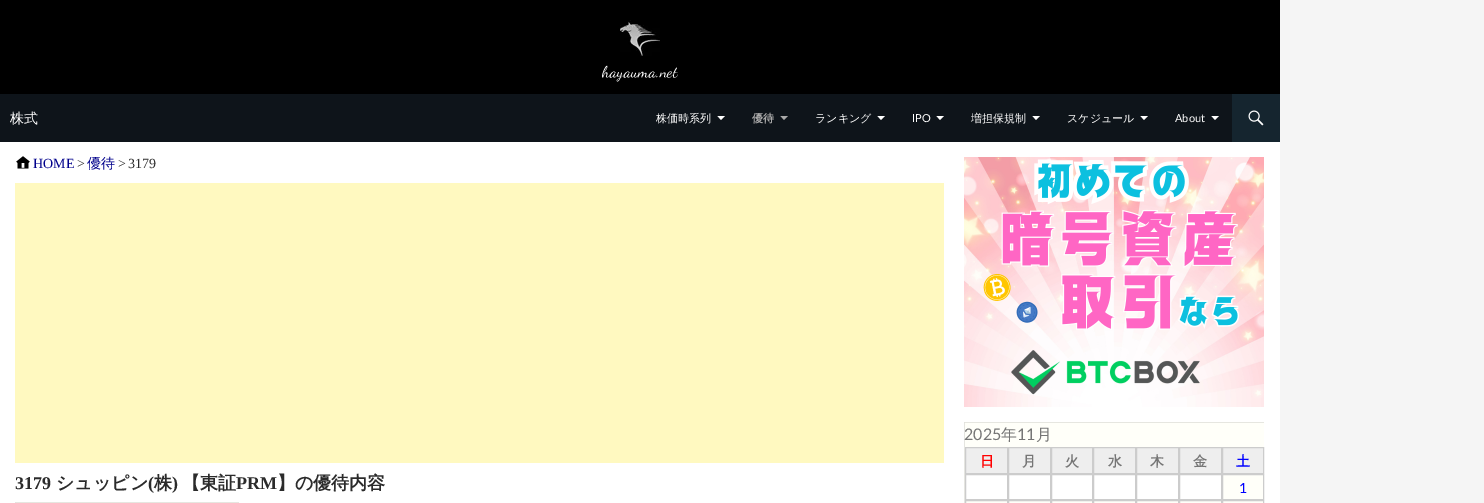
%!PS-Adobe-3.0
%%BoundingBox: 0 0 1484 503
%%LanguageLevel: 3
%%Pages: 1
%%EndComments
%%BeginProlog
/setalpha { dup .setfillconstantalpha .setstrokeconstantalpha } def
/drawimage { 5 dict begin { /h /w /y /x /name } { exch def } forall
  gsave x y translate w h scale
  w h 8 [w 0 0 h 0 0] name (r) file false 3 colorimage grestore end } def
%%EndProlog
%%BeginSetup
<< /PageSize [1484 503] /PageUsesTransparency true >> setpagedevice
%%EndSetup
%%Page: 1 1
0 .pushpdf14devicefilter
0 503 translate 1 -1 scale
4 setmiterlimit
0.961 setgray
0 0 1484 503 rectfill
0 setgray
0 0 1280 94 rectfill
(images/1.raw) 620 20 40 36 drawimage
0.055 0.078 0.102 setrgbcolor
0 94 1232 48 rectfill
1 setgray
newpath 717.5 116 moveto 721 120 lineto 725 116 lineto closepath fill
0.663 setgray
newpath 780.5 116 moveto 784 120 lineto 788 116 lineto closepath fill
1 setgray
newpath 877.5 116 moveto 881 120 lineto 885 116 lineto closepath fill
newpath 936.5 116 moveto 940 120 lineto 944 116 lineto closepath fill
newpath 1032.5 116 moveto 1036 120 lineto 1040 116 lineto closepath fill
newpath 1140.5 116 moveto 1144 120 lineto 1148 116 lineto closepath fill
newpath 1211.5 116 moveto 1215 120 lineto 1219 116 lineto closepath fill
0.082 0.145 0.184 setrgbcolor
1232 94 48 48 rectfill
(images/2.raw) 1248 110 16 16 drawimage
1 setgray
0 142 1280 361 rectfill
(images/3.raw) 16 156 14 13 drawimage
1 0.976 0.753 setrgbcolor
15 183 929 280 rectfill
0.902 0.902 0.878 setrgbcolor
newpath 15 502 moveto 239 502 lineto 239 503 lineto 16 503 lineto closepath fill
0.859 0.859 0.839 setrgbcolor
newpath 15 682 moveto 15 502 lineto 16 503 lineto 16 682 lineto closepath fill
(images/4.raw) 964 157 300 250 drawimage
1 1 0.976 setrgbcolor
964 422 300 81 rectfill
0.902 0.902 0.878 setrgbcolor
newpath 964 422 moveto 1264 422 lineto 1264 423 lineto 965 423 lineto closepath fill
0.1 setalpha
0 setgray
newpath 964 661 moveto 964 422 lineto 965 423 lineto 965 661 lineto closepath fill
1 setalpha
0.933 setgray
newpath 965.5 447.5 moveto 1007.5 447.5 lineto 1007.5 473.5 lineto 965.5 473.5 lineto closepath gsave fill grestore
0.8 setgray
stroke
0.933 setgray
newpath 1008.5 447.5 moveto 1050.5 447.5 lineto 1050.5 473.5 lineto 1008.5 473.5 lineto closepath gsave fill grestore
0.8 setgray
stroke
0.933 setgray
newpath 1051.5 447.5 moveto 1092.5 447.5 lineto 1092.5 473.5 lineto 1051.5 473.5 lineto closepath gsave fill grestore
0.8 setgray
stroke
0.933 setgray
newpath 1093.5 447.5 moveto 1135.5 447.5 lineto 1135.5 473.5 lineto 1093.5 473.5 lineto closepath gsave fill grestore
0.8 setgray
stroke
0.933 setgray
newpath 1136.5 447.5 moveto 1178.5 447.5 lineto 1178.5 473.5 lineto 1136.5 473.5 lineto closepath gsave fill grestore
0.8 setgray
stroke
0.933 setgray
newpath 1179.5 447.5 moveto 1221.5 447.5 lineto 1221.5 473.5 lineto 1179.5 473.5 lineto closepath gsave fill grestore
0.8 setgray
stroke
0.933 setgray
newpath 1222.5 447.5 moveto 1263.5 447.5 lineto 1263.5 473.5 lineto 1222.5 473.5 lineto closepath gsave fill grestore
0.8 setgray
stroke
1 setgray
newpath 965.5 474.5 moveto 1007.5 474.5 lineto 1007.5 499.5 lineto 965.5 499.5 lineto closepath gsave fill grestore
0.8 setgray
stroke
1 setgray
newpath 1008.5 474.5 moveto 1050.5 474.5 lineto 1050.5 499.5 lineto 1008.5 499.5 lineto closepath gsave fill grestore
0.8 setgray
stroke
1 setgray
newpath 1051.5 474.5 moveto 1092.5 474.5 lineto 1092.5 499.5 lineto 1051.5 499.5 lineto closepath gsave fill grestore
0.8 setgray
stroke
1 setgray
newpath 1093.5 474.5 moveto 1135.5 474.5 lineto 1135.5 499.5 lineto 1093.5 499.5 lineto closepath gsave fill grestore
0.8 setgray
stroke
1 setgray
newpath 1136.5 474.5 moveto 1178.5 474.5 lineto 1178.5 499.5 lineto 1136.5 499.5 lineto closepath gsave fill grestore
0.8 setgray
stroke
1 setgray
newpath 1179.5 474.5 moveto 1221.5 474.5 lineto 1221.5 499.5 lineto 1179.5 499.5 lineto closepath gsave fill grestore
0.8 setgray
stroke
1222.5 474.5 41 25 rectstroke
965.5 500.5 42 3 rectstroke
1008.5 500.5 42 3 rectstroke
1051.5 500.5 41 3 rectstroke
1093.5 500.5 42 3 rectstroke
1136.5 500.5 42 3 rectstroke
1179.5 500.5 42 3 rectstroke
1222.5 500.5 41 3 rectstroke
/DancingScript-Regular [16 0 0 -16 0 0] selectfont
1 setgray
602 77 moveto 0.25 0 (hayauma.net) ashow
/WenQuanYiZenHei-Medium [14 0 0 -14 0 0] selectfont
10 123 moveto (株式) show
/WenQuanYiZenHei-Medium [11 0 0 -11 0 0] selectfont
656 122 moveto (株価時系列) show
/WenQuanYiZenHei-Bold [11 0 0 -11 0 0] selectfont
0.663 setgray
752 122 moveto (優待) show
/WenQuanYiZenHei-Medium [11 0 0 -11 0 0] selectfont
1 setgray
815 122 moveto (ランキング) show
/Lato-Regular [11 0 0 -11 0 0] selectfont
912 122 moveto (IPO) show
/WenQuanYiZenHei-Medium [11 0 0 -11 0 0] selectfont
971 122 moveto (増担保規制) show
1067 122 moveto (スケジュール) show
/Lato-Regular [11 0 0 -11 0 0] selectfont
1175 122 moveto (About) show
/LiberationSerif-Regular [14 0 0 -14 0 0] selectfont
0 0 0.545 setrgbcolor
33 168 moveto (HOME) show
0.169 setgray
77 168 moveto (>) show
/WenQuanYiZenHei-Medium [14 0 0 -14 0 0] selectfont
0 0 0.545 setrgbcolor
87 168 moveto (優待) show
/LiberationSerif-Regular [14 0 0 -14 0 0] selectfont
0.169 setgray
118 168 moveto (>) show
128 168 moveto (3179) show
/LiberationSerif-Bold [18 0 0 -18 0 0] selectfont
15 489 moveto (3179) show
/WenQuanYiZenHei-Bold [18 0 0 -18 0 0] selectfont
56 489 moveto (シュッピン) show
/LiberationSerif-Bold [18 0 0 -18 0 0] selectfont
148 489 moveto (\() show
/WenQuanYiZenHei-Bold [18 0 0 -18 0 0] selectfont
154 489 moveto (株) show
/LiberationSerif-Bold [18 0 0 -18 0 0] selectfont
172 489 moveto (\)) show
/WenQuanYiZenHei-Bold [18 0 0 -18 0 0] selectfont
182 489 moveto (【東証) show
/LiberationSerif-Bold [18 0 0 -18 0 0] selectfont
236 489 moveto (PRM) show
/WenQuanYiZenHei-Bold [18 0 0 -18 0 0] selectfont
277 489 moveto (】の優待内容) show
/Lato-Regular [16 0 0 -16 0 0] selectfont
0.463 setgray
964 440 moveto (2025) show
/WenQuanYiZenHei-Medium [16 0 0 -16 0 0] selectfont
1001 440 moveto (年) show
/Lato-Regular [16 0 0 -16 0 0] selectfont
1017 440 moveto (11) show
/WenQuanYiZenHei-Medium [16 0 0 -16 0 0] selectfont
1036 440 moveto (月) show
/WenQuanYiZenHei-Bold [14 0 0 -14 0 0] selectfont
1 0 0 setrgbcolor
980 466 moveto (日) show
0.463 setgray
1022 466 moveto (月) show
1065 466 moveto (火) show
1108 466 moveto (水) show
1150 466 moveto (木) show
1193 466 moveto (金) show
0 0 1 setrgbcolor
1236 466 moveto (土) show
/Lato-Regular [14 0 0 -14 0 0] selectfont
1239 493 moveto (1) show
.poppdf14devicefilter showpage
%%EOF
